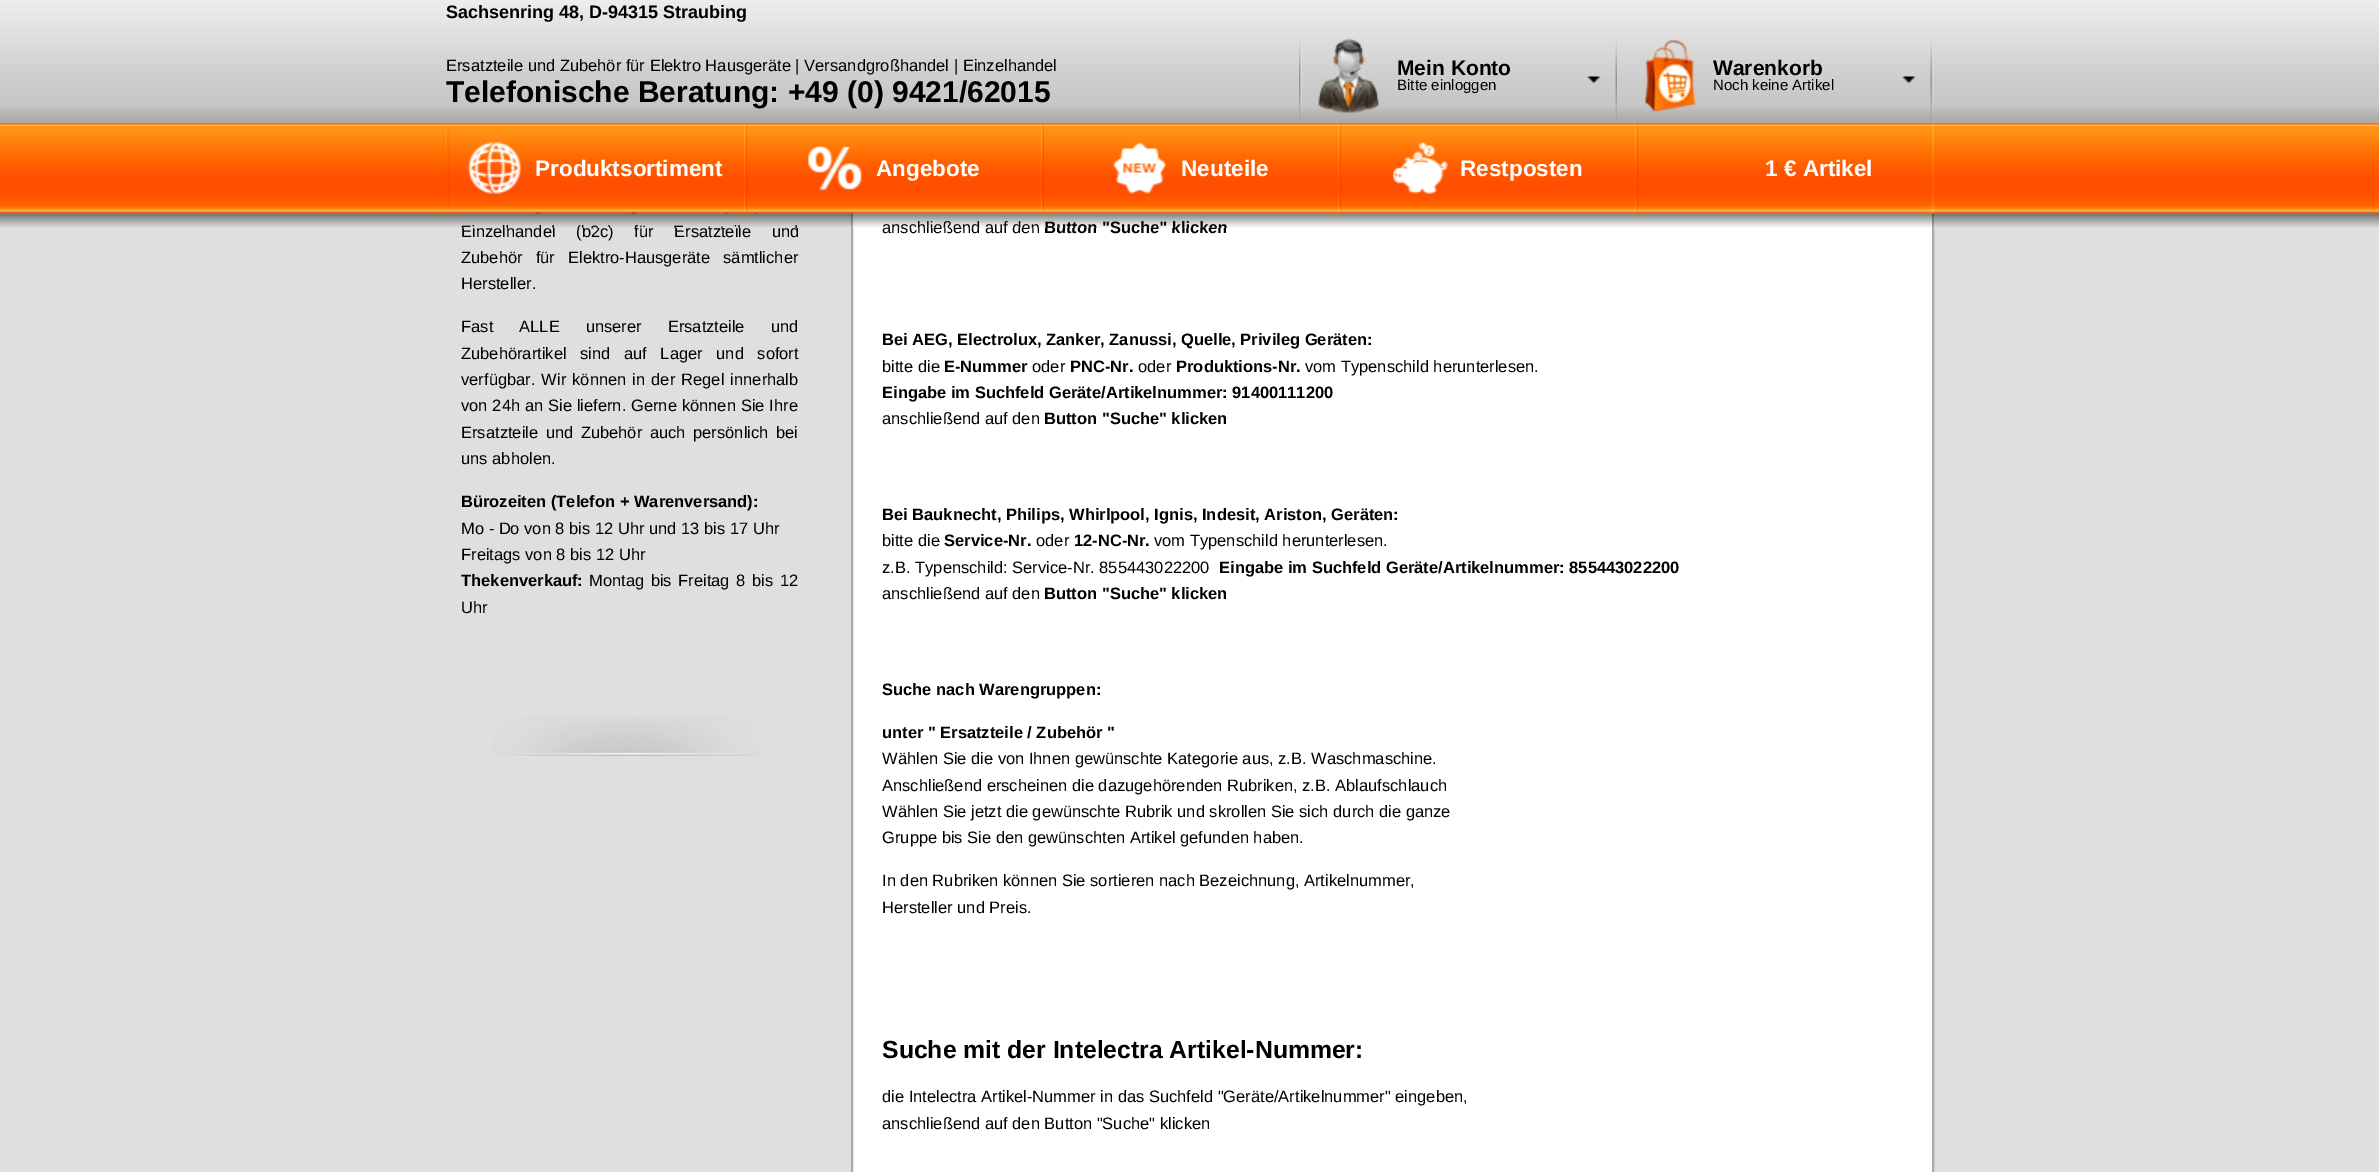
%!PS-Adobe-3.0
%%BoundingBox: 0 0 2379 1172
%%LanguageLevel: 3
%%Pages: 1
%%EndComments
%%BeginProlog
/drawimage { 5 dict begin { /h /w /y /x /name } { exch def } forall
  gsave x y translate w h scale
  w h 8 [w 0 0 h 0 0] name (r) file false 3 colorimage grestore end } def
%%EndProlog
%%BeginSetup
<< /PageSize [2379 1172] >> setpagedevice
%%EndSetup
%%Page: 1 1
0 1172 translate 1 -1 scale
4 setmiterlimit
0.875 setgray
0 0 2379 1172 rectfill
(images/16.raw) 491 715 278 41 drawimage
1 setgray
853 212 1079 960 rectfill
0.667 setgray
2 setlinewidth
852 -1 1081 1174 rectstroke
/LiberationSans-Regular [16.5 0 0 -16.5 0 0] selectfont
0 setgray
461 237 moveto 16 0 32 (Einzelhandel \(b2c\) für Ersatzteile und) widthshow
461 263 moveto 8.5 0 32 (Zubehör für Elektro-Hausgeräte sämtlicher) widthshow
461 289 moveto (Hersteller.) show
461 332 moveto 21.5 0 32 (Fast ALLE unserer Ersatzteile und) widthshow
461 359 moveto 9 0 32 (Zubehörartikel sind auf Lager und sofort) widthshow
461 385 moveto 1.5 0 32 (verfügbar. Wir können in der Regel innerhalb) widthshow
461 411 moveto 0.25 0 32 (von 24h an Sie liefern. Gerne können Sie Ihre) widthshow
461 438 moveto 3 0 32 (Ersatzteile und Zubehör auch persönlich bei) widthshow
461 464 moveto (uns abholen.) show
/LiberationSans-Bold [16.5 0 0 -16.5 0 0] selectfont
461 507 moveto (Bürozeiten \(Telefon + Warenversand\):) show
/LiberationSans-Regular [16.5 0 0 -16.5 0 0] selectfont
461 534 moveto (Mo - Do von 8 bis 12 Uhr und 13 bis 17 Uhr) show
461 560 moveto (Freitags von 8 bis 12 Uhr) show
/LiberationSans-Bold [16.5 0 0 -16.5 0 0] selectfont
461 586 moveto (Thekenverkauf:) show
/LiberationSans-Regular [16.5 0 0 -16.5 0 0] selectfont
589 586 moveto 2 0 32 (Montag bis Freitag 8 bis 12) widthshow
461 613 moveto (Uhr) show
882 233 moveto (anschließend auf den) show
/LiberationSans-Bold [16.5 0 0 -16.5 0 0] selectfont
1044 233 moveto (Button "Suche" klicken) show
(images/1.raw) 0 0 2379 228 drawimage
(images/6.raw) 1932 123 2 90 drawimage
(images/14.raw) 1634 123 3 90 drawimage
(images/15.raw) 1636 123 2 90 drawimage
/LiberationSans-Bold [22.5 0 0 -22.5 0 0] selectfont
1 setgray
1765 176 moveto (1 € Artikel) show
(images/6.raw) 1338 123 2 90 drawimage
(images/13.raw) 1339 123 3 90 drawimage
1460 176 moveto (Restposten) show
(images/12.raw) 1393 142 55 52 drawimage
(images/9.raw) 1040 123 3 90 drawimage
(images/11.raw) 1042 123 2 90 drawimage
1181 176 moveto (Neuteile) show
(images/10.raw) 1112 142 54 52 drawimage
(images/6.raw) 744 123 2 90 drawimage
(images/8.raw) 745 123 3 90 drawimage
876 176 moveto (Angebote) show
(images/7.raw) 808 145 54 46 drawimage
(images/5.raw) 446 123 3 90 drawimage
535 176 moveto (Produktsortiment) show
(images/4.raw) 467 142 54 52 drawimage
(images/3.raw) 1645 40 289 80 drawimage
/LiberationSans-Regular [15 0 0 -15 0 0] selectfont
0 setgray
1713 90 moveto (Noch keine Artikel) show
/LiberationSans-Bold [21 0 0 -21 0 0] selectfont
1713 75 moveto (Warenkorb) show
(images/2.raw) 1299 38 318 82 drawimage
/LiberationSans-Regular [15 0 0 -15 0 0] selectfont
1397 90 moveto (Bitte einloggen) show
/LiberationSans-Bold [21 0 0 -21 0 0] selectfont
1397 75 moveto (Mein Konto) show
/LiberationSans-Bold [30 0 0 -30 0 0] selectfont
446 102 moveto (Telefonische Beratung: +49 \(0\) 9421/62015) show
/LiberationSans-Regular [16.5 0 0 -16.5 0 0] selectfont
446 71 moveto (Ersatzteile und Zubehör für Elektro Hausgeräte | Versandgroßhandel | Einzelhandel) show
/LiberationSans-Bold [18 0 0 -18 0 0] selectfont
446 18 moveto (Sachsenring 48, D-94315 Straubing) show
/LiberationSans-Bold [16.5 0 0 -16.5 0 0] selectfont
882 345 moveto (Bei AEG, Electrolux, Zanker, Zanussi, Quelle, Privileg Geräten:) show
/LiberationSans-Regular [16.5 0 0 -16.5 0 0] selectfont
882 372 moveto (bitte die) show
/LiberationSans-Bold [16.5 0 0 -16.5 0 0] selectfont
944 372 moveto (E-Nummer) show
/LiberationSans-Regular [16.5 0 0 -16.5 0 0] selectfont
1032 372 moveto (oder) show
/LiberationSans-Bold [16.5 0 0 -16.5 0 0] selectfont
1070 372 moveto (PNC-Nr.) show
/LiberationSans-Regular [16.5 0 0 -16.5 0 0] selectfont
1138 372 moveto (oder) show
/LiberationSans-Bold [16.5 0 0 -16.5 0 0] selectfont
1176 372 moveto (Produktions-Nr.) show
/LiberationSans-Regular [16.5 0 0 -16.5 0 0] selectfont
1305 372 moveto (vom Typenschild herunterlesen.) show
/LiberationSans-Bold [16.5 0 0 -16.5 0 0] selectfont
882 398 moveto (Eingabe im Suchfeld Geräte/Artikelnummer: 91400111200) show
/LiberationSans-Regular [16.5 0 0 -16.5 0 0] selectfont
882 424 moveto (anschließend auf den) show
/LiberationSans-Bold [16.5 0 0 -16.5 0 0] selectfont
1044 424 moveto (Button "Suche" klicken) show
882 520 moveto (Bei Bauknecht, Philips, Whirlpool, Ignis, Indesit, Ariston, Geräten:) show
/LiberationSans-Regular [16.5 0 0 -16.5 0 0] selectfont
882 546 moveto (bitte die) show
/LiberationSans-Bold [16.5 0 0 -16.5 0 0] selectfont
944 546 moveto (Service-Nr.) show
/LiberationSans-Regular [16.5 0 0 -16.5 0 0] selectfont
1036 546 moveto (oder) show
/LiberationSans-Bold [16.5 0 0 -16.5 0 0] selectfont
1074 546 moveto (12-NC-Nr.) show
/LiberationSans-Regular [16.5 0 0 -16.5 0 0] selectfont
1154 546 moveto (vom Typenschild herunterlesen.) show
882 573 moveto (z.B. Typenschild: Service-Nr. 855443022200) show
/LiberationSans-Bold [16.5 0 0 -16.5 0 0] selectfont
1219 573 moveto (Eingabe im Suchfeld Geräte/Artikelnummer: 855443022200) show
/LiberationSans-Regular [16.5 0 0 -16.5 0 0] selectfont
882 599 moveto (anschließend auf den) show
/LiberationSans-Bold [16.5 0 0 -16.5 0 0] selectfont
1044 599 moveto (Button "Suche" klicken) show
882 695 moveto (Suche nach Warengruppen:) show
882 738 moveto (unter " Ersatzteile / Zubehör ") show
/LiberationSans-Regular [16.5 0 0 -16.5 0 0] selectfont
882 764 moveto (Wählen Sie die von Ihnen gewünschte Kategorie aus, z.B. Waschmaschine.) show
882 791 moveto (Anschließend erscheinen die dazugehörenden Rubriken, z.B. Ablaufschlauch) show
882 817 moveto (Wählen Sie jetzt die gewünschte Rubrik und skrollen Sie sich durch die ganze) show
882 843 moveto (Gruppe bis Sie den gewünschten Artikel gefunden haben.) show
882 886 moveto (In den Rubriken können Sie sortieren nach Bezeichnung, Artikelnummer,) show
882 913 moveto (Hersteller und Preis.) show
/LiberationSans-Bold [24.75 0 0 -24.75 0 0] selectfont
882 1058 moveto (Suche mit der Intelectra Artikel-Nummer:) show
/LiberationSans-Regular [16.5 0 0 -16.5 0 0] selectfont
882 1102 moveto (die Intelectra Artikel-Nummer in das Suchfeld "Geräte/Artikelnummer" eingeben,) show
882 1129 moveto (anschließend auf den Button "Suche" klicken) show
showpage
%%EOF
